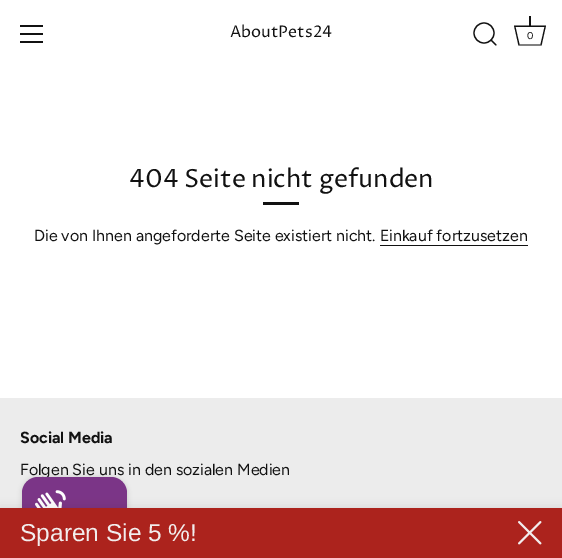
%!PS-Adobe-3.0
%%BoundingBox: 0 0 562 558
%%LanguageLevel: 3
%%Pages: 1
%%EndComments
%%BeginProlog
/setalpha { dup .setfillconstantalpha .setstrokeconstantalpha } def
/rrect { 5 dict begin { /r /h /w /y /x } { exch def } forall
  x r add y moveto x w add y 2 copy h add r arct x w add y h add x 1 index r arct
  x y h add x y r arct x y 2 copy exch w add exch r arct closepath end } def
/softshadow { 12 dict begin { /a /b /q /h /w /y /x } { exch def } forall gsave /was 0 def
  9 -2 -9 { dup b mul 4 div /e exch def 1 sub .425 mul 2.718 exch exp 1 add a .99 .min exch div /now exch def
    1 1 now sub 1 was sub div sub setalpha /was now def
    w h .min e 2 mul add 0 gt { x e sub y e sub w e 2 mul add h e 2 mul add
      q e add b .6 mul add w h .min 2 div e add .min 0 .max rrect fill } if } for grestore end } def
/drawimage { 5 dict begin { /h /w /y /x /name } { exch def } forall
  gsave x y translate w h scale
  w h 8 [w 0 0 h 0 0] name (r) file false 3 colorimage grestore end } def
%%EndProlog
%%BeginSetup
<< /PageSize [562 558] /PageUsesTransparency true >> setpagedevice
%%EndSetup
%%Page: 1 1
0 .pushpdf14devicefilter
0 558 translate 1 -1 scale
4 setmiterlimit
1 setgray
0 0 562 558 rectfill
0.067 setgray
20 25 23 2 rectfill
20 33 23 2 rectfill
20 41 23 2 rectfill
1.2 setlinewidth
newpath 484 33 10 0 360 arc closepath stroke
1 setlinecap
1 setlinejoin
newpath 496 45 moveto 491 40 lineto stroke
newpath 544.5 27 moveto 540.5 44.5 lineto 519.5 44.5 lineto 515.5 27 lineto 544.5 27 lineto 546 25.5 moveto 514 25.5 lineto 518.5 45.5 lineto 541.5 45.5 lineto closepath fill
529 16 2 10 rectfill
263 202 36 3 rectfill
380 245 148 1 rectfill
0.925 setgray
0 398 562 110 rectfill
0 setgray
22 477 105 60 16 2.5 0.15 softshadow
/ProzaLibre-Regular [16 0 0 -16 0 0] selectfont
0.067 setgray
230 37 moveto (AboutPets24) show
/Figtree-Regular [10 0 0 -10 0 0] selectfont
527 39 moveto (0) show
/ProzaLibre-Regular [25 0 0 -25 0 0] selectfont
129 187 moveto (404 Seite nicht gefunden) show
/Figtree-Regular [16 0 0 -16 0 0] selectfont
34 241 moveto (Die von Ihnen angeforderte Seite existiert nicht. Einkauf fortzusetzen) show
/Figtree-Bold [16 0 0 -16 0 0] selectfont
20 443 moveto (Social Media) show
/Figtree-Regular [16 0 0 -16 0 0] selectfont
20 475 moveto (Folgen Sie uns in den sozialen Medien) show
0.482 0.208 0.529 setrgbcolor
22 477 105 60 16 rrect fill
(images/1.raw) 35 490 31 18 drawimage
0 setgray
0 508 562 50 0 5 0.1 softshadow
0.675 0.137 0.114 setrgbcolor
0 508 562 50 rectfill
/LiberationSans-Regular [24.5 0 0 -24.5 0 0] selectfont
0.949 0.929 0.929 setrgbcolor
20 541 moveto (Sparen Sie 5 %!) show
(images/2.raw) 518 521 24 24 drawimage
.poppdf14devicefilter showpage
%%EOF
